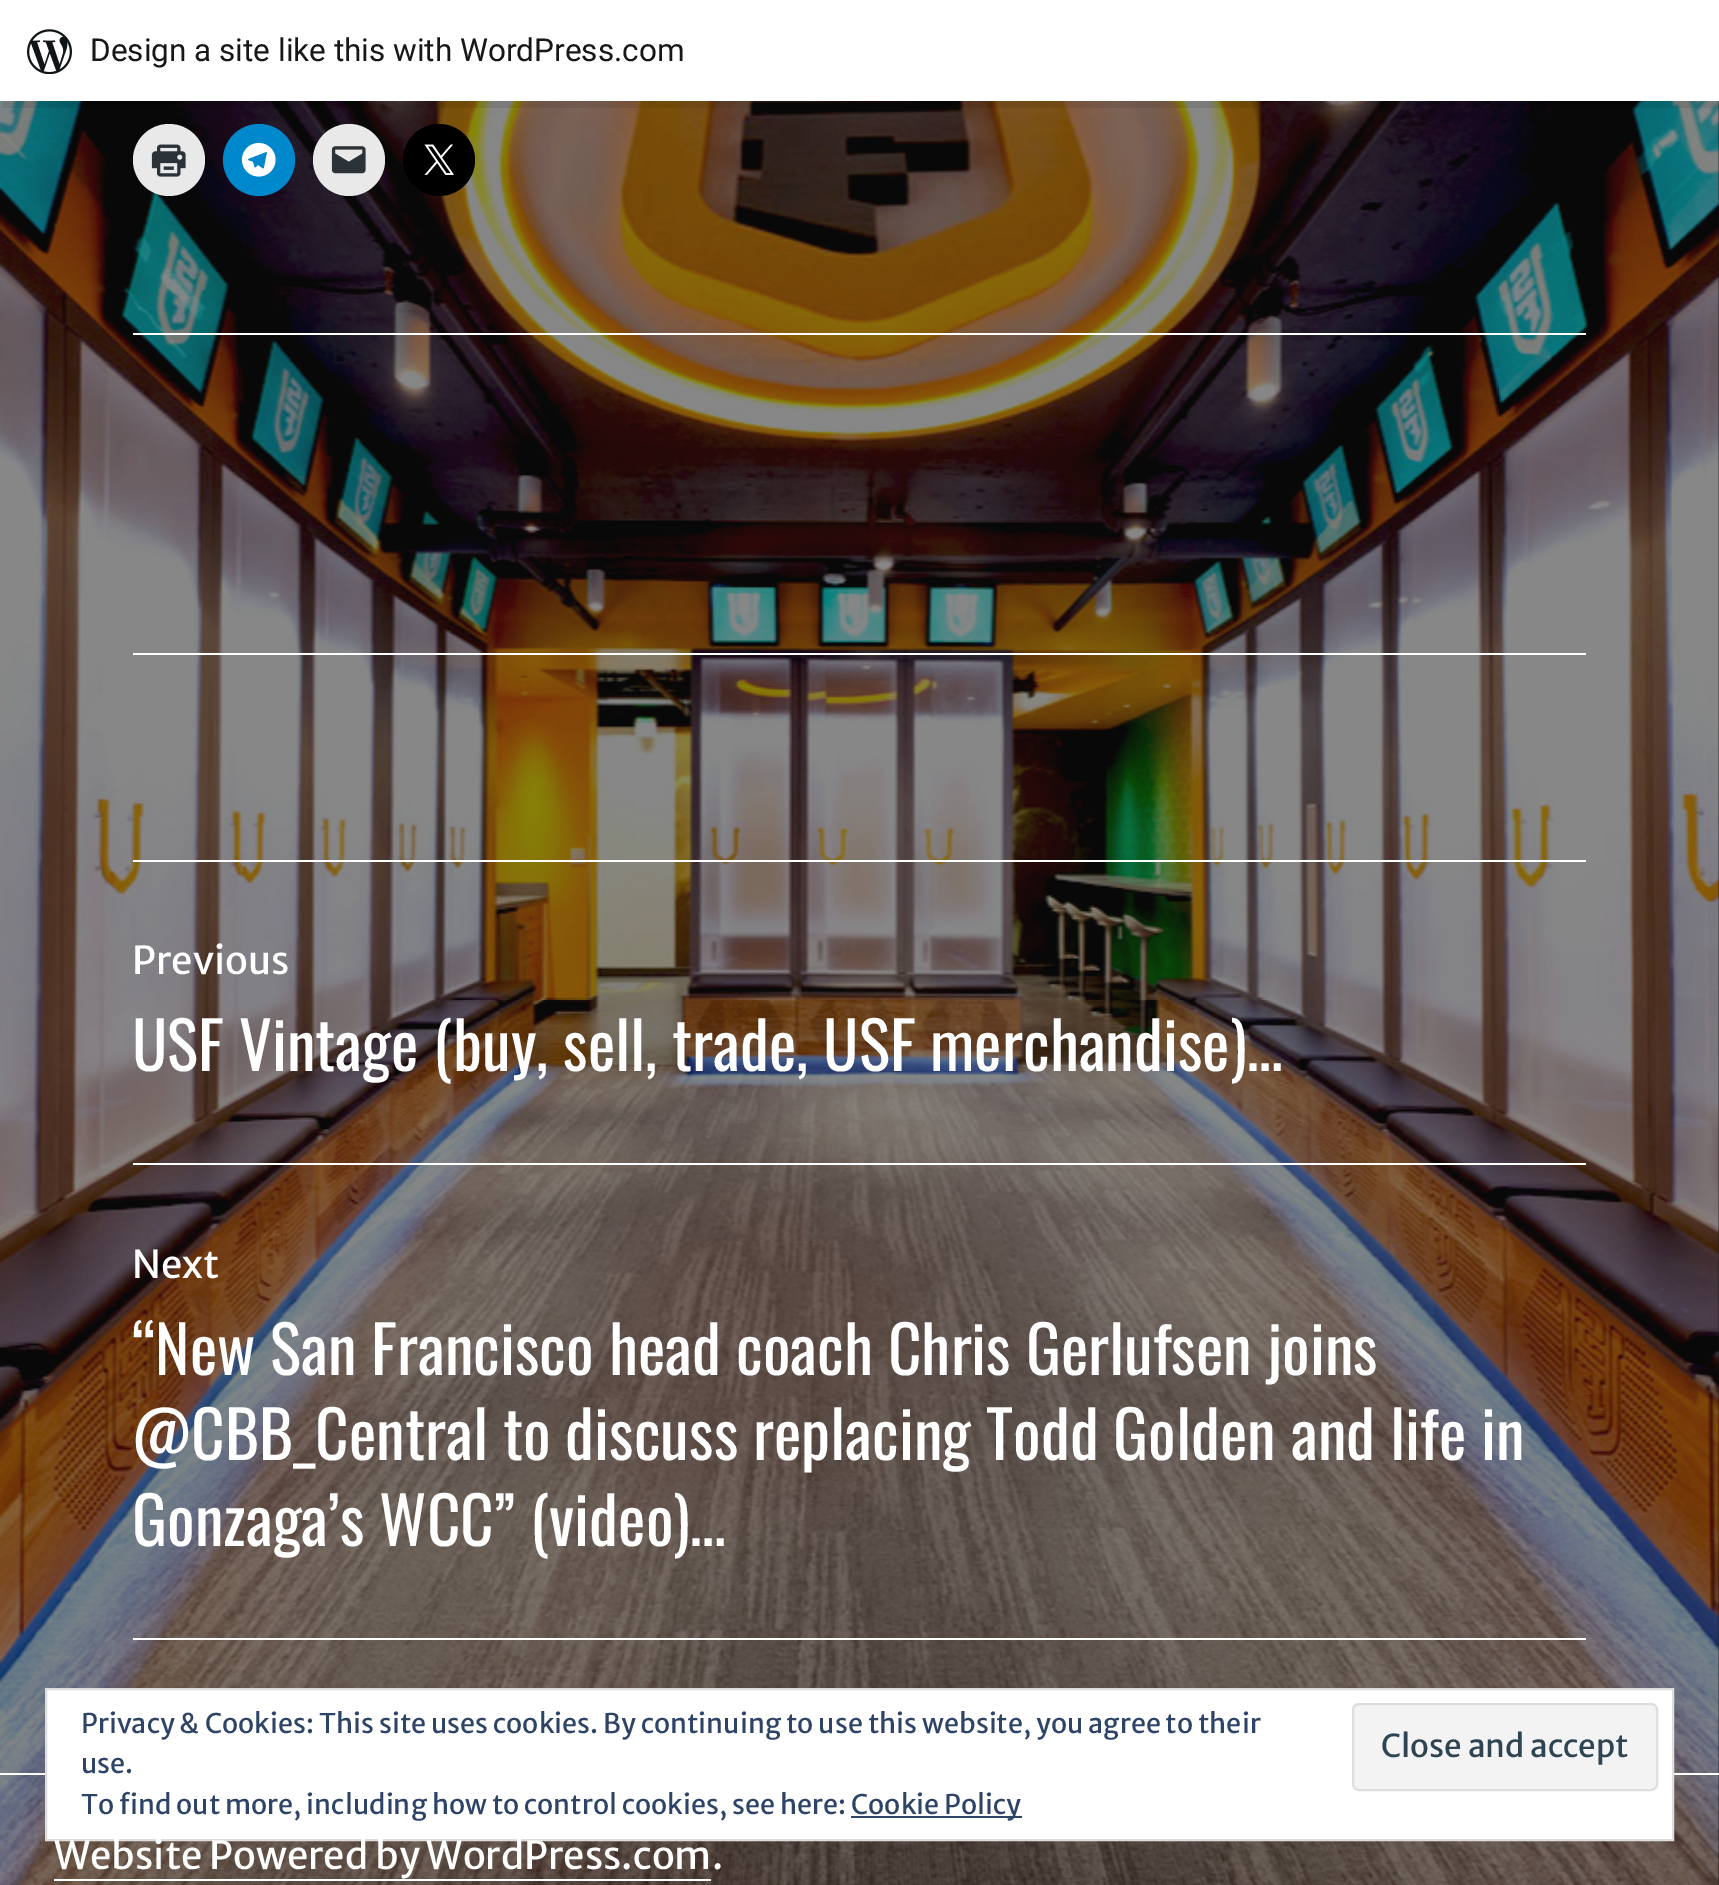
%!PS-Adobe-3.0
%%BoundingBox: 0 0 1719 1885
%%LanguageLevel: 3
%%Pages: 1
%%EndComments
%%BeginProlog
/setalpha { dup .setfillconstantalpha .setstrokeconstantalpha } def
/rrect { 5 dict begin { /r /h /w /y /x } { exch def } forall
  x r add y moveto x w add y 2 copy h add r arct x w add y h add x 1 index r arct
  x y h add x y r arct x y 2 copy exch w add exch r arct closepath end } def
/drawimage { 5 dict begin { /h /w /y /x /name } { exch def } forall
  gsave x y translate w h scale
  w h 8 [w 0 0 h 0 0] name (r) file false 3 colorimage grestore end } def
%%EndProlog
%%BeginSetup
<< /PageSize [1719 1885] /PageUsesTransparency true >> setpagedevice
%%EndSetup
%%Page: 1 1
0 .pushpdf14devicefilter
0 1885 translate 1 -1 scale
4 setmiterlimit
0.059 setgray
0 0 1719 1885 rectfill
(images/2.raw) 0 101 1719 1784 drawimage
0.08 setalpha
0 setgray
newpath 2 101 moveto 2 108 lineto 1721 108 lineto 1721 7 lineto 1719 7 lineto 1719 101 lineto closepath fill
1 setalpha
1 setgray
0 0 1719 101 rectfill
(images/1.raw) 27 29 45 45 drawimage
0.914 setgray
newpath 169 160 36 0 360 arc closepath fill
(images/3.raw) 151 144 35 33 drawimage
0 0.533 0.8 setrgbcolor
newpath 259 160 36 0 360 arc closepath fill
(images/4.raw) 241 142 35 35 drawimage
0.914 setgray
newpath 349 160 36 0 360 arc closepath fill
(images/5.raw) 331 146 35 28 drawimage
0 setgray
newpath 439 160 36 0 360 arc closepath fill
(images/6.raw) 424 144 30 31 drawimage
1 setgray
133 333 1453 2 rectfill
133 653 1453 2 rectfill
133 860 1453 2 rectfill
133 1638 1453 2 rectfill
133 1163 1453 2 rectfill
0 1773 1719 2 rectfill
54 1879 657 2 rectfill
newpath 46 1689 moveto 1673 1689 lineto 1673 1840 lineto 46 1840 lineto closepath gsave fill grestore
0.871 setgray
2 setlinewidth
stroke
0.953 setgray
1353 1704 304 86 6 rrect gsave fill grestore
0.871 setgray
stroke
0.18 0.267 0.404 setrgbcolor
851 1816 171 2 rectfill
/Roboto-Regular [31.5 0 0 -31.5 0 0] selectfont
0.09 setgray
90 61 moveto (Design a site like this with WordPress.com) show
/MerriweatherSans-Regular [38.25 0 0 -38.25 0 0] selectfont
1 setgray
132 974 moveto (Previous) show
/Oswald-Regular [65.25 0 0 -65.25 0 0] selectfont
132 1071 moveto (USF Vintage \(buy, sell, trade, USF merchandise\)…) show
/MerriweatherSans-Regular [38.25 0 0 -38.25 0 0] selectfont
132 1278 moveto (Next) show
/Oswald-Regular [65.25 0 0 -65.25 0 0] selectfont
132 1375 moveto (“New San Francisco head coach Chris Gerlufsen joins) show
132 1460 moveto (@CBB_Central to discuss replacing Todd Golden and life in) show
132 1546 moveto (Gonzaga’s WCC” \(video\)…) show
/MerriweatherSans-Regular [38.25 0 0 -38.25 0 0] selectfont
54 1869 moveto (Website Powered by WordPress.com.) show
/MerriweatherSans-Regular [27 0 0 -27 0 0] selectfont
0.18 0.267 0.404 setrgbcolor
81 1733 moveto (Privacy & Cookies: This site uses cookies. By continuing to use this website, you agree to their) show
81 1773 moveto (use.) show
/MerriweatherSans-Regular [31.5 0 0 -31.5 0 0] selectfont
0.18 0.267 0.325 setrgbcolor
1381 1757 moveto (Close and accept) show
/MerriweatherSans-Regular [27 0 0 -27 0 0] selectfont
0.18 0.267 0.404 setrgbcolor
81 1814 moveto (To find out more, including how to control cookies, see here:) show
851 1814 moveto (Cookie Policy) show
.poppdf14devicefilter showpage
%%EOF
